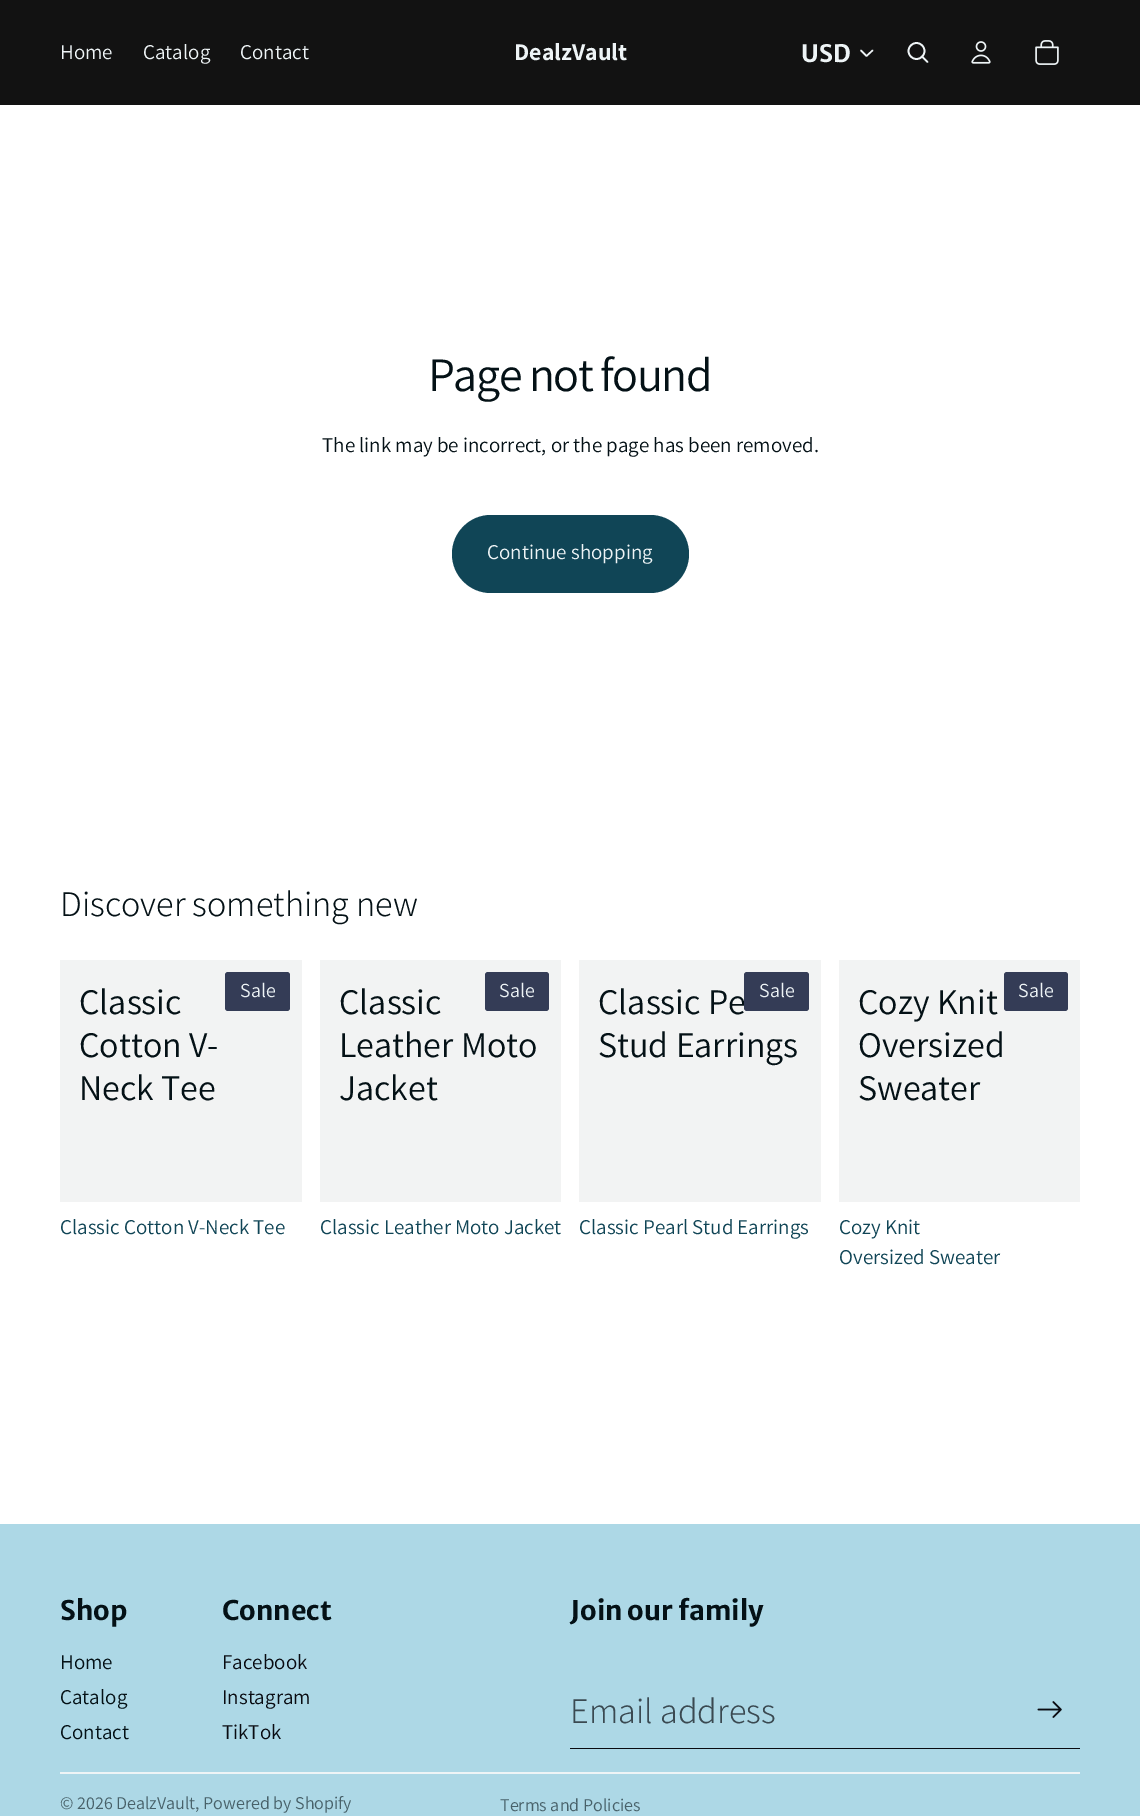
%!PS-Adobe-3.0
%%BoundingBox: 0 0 1140 1816
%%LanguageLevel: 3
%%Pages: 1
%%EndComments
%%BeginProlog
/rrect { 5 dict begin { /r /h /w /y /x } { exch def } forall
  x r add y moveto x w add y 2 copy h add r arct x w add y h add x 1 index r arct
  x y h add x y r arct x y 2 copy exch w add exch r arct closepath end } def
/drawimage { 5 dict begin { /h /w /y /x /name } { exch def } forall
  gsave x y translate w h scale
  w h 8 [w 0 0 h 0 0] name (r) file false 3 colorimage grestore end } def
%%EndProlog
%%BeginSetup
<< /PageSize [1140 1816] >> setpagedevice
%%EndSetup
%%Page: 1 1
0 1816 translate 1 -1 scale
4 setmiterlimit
1 setgray
0 0 1140 1816 rectfill
0.071 setgray
0 0 1140 105 rectfill
0.933 0.957 0.965 setrgbcolor
1.5 setlinewidth
1 setlinecap
1 setlinejoin
newpath 872.5 50.5 moveto 866.5 56 lineto 861 50.5 lineto stroke
1.7 setlinewidth
0 setlinecap
0 setlinejoin
newpath 916.5 51 8 0 360 arc closepath stroke
1 setlinecap
1 setlinejoin
newpath 922 56.5 moveto 927.5 62 lineto stroke
(images/1.raw) 971 41 20 23 drawimage
(images/2.raw) 1035 40 24 25 drawimage
0.063 0.271 0.337 setrgbcolor
452 515 237 78 39 rrect fill
0.949 0.953 0.953 setrgbcolor
60 960 242 242 rectfill
0.204 0.235 0.337 setrgbcolor
225 972 65 39 3 rrect fill
0.949 0.953 0.953 setrgbcolor
320 960 241 242 rectfill
0.204 0.235 0.337 setrgbcolor
485 972 64 39 3 rrect fill
0.949 0.953 0.953 setrgbcolor
579 960 242 242 rectfill
839 960 241 242 rectfill
0.204 0.235 0.337 setrgbcolor
1004 972 64 39 3 rrect fill
0.678 0.847 0.902 setrgbcolor
0 1524 1140 292 rectfill
0.035 0.043 0.067 setrgbcolor
570 1748 510 1 rectfill
(images/3.raw) 1037 1701 25 17 drawimage
0.933 0.957 0.965 setrgbcolor
60 1772 1020 2 rectfill
/Assistant-Regular [21 0 0 -21 0 0] selectfont
60 59 moveto (Home) show
143 59 moveto (Catalog) show
240 59 moveto (Contact) show
/Assistant-Bold [24 0 0 -24 0 0] selectfont
514 60 moveto (DealzVault) show
/MerriweatherSans-Bold [24 0 0 -24 0 0] selectfont
801 62 moveto (USD) show
/Assistant-Regular [48 0 0 -48 0 0] selectfont
0.016 0.067 0.086 setrgbcolor
428 391 moveto -1.5 0 (Page not found) ashow
/Assistant-Regular [21 0 0 -21 0 0] selectfont
322 452 moveto (The link may be incorrect, or the page has been removed.) show
0.933 0.957 0.965 setrgbcolor
487 559 moveto (Continue shopping) show
/Assistant-Light [36 0 0 -36 0 0] selectfont
0.016 0.067 0.086 setrgbcolor
60 916 moveto (Discover something new) show
/Assistant-Regular [36 0 0 -36 0 0] selectfont
79 1014 moveto (Classic) show
79 1057 moveto (Cotton V-) show
79 1100 moveto (Neck Tee) show
/Assistant-Regular [20 0 0 -20 0 0] selectfont
0.933 0.957 0.965 setrgbcolor
240 997 moveto (Sale) show
/Assistant-Regular [21 0 0 -21 0 0] selectfont
0.063 0.271 0.337 setrgbcolor
60 1234 moveto (Classic Cotton V-Neck Tee) show
/Assistant-Regular [20 0 0 -20 0 0] selectfont
0.933 0.957 0.965 setrgbcolor
499 997 moveto (Sale) show
/Assistant-Regular [36 0 0 -36 0 0] selectfont
0.016 0.067 0.086 setrgbcolor
339 1014 moveto (Classic) show
339 1057 moveto (Leather Moto) show
339 1100 moveto (Jacket) show
/Assistant-Regular [21 0 0 -21 0 0] selectfont
0.063 0.271 0.337 setrgbcolor
320 1234 moveto (Classic Leather Moto Jacket) show
/Assistant-Regular [36 0 0 -36 0 0] selectfont
0.016 0.067 0.086 setrgbcolor
598 1014 moveto (Classic Pe) show
0.204 0.235 0.337 setrgbcolor
744 972 65 39 3 rrect fill
/Assistant-Regular [20 0 0 -20 0 0] selectfont
0.933 0.957 0.965 setrgbcolor
759 997 moveto (Sale) show
/Assistant-Regular [36 0 0 -36 0 0] selectfont
0.016 0.067 0.086 setrgbcolor
598 1057 moveto (Stud Earrings) show
/Assistant-Regular [21 0 0 -21 0 0] selectfont
0.063 0.271 0.337 setrgbcolor
579 1234 moveto (Classic Pearl Stud Earrings) show
/Assistant-Regular [36 0 0 -36 0 0] selectfont
0.016 0.067 0.086 setrgbcolor
858 1014 moveto (Cozy Knit) show
858 1057 moveto (Oversized) show
858 1100 moveto (Sweater) show
/Assistant-Regular [20 0 0 -20 0 0] selectfont
0.933 0.957 0.965 setrgbcolor
1018 997 moveto (Sale) show
/Assistant-Regular [21 0 0 -21 0 0] selectfont
0.063 0.271 0.337 setrgbcolor
839 1234 moveto (Cozy Knit) show
839 1264 moveto (Oversized Sweater) show
/MerriweatherSans-Bold [27 0 0 -27 0 0] selectfont
0.016 0.067 0.086 setrgbcolor
60 1620 moveto (Shop) show
/Assistant-Regular [21 0 0 -21 0 0] selectfont
60 1669 moveto (Home) show
60 1704 moveto (Catalog) show
60 1739 moveto (Contact) show
/MerriweatherSans-Bold [27 0 0 -27 0 0] selectfont
222 1620 moveto (Connect) show
/Assistant-Regular [21 0 0 -21 0 0] selectfont
0.035 0.043 0.067 setrgbcolor
222 1669 moveto (Facebook) show
222 1704 moveto (Instagram) show
222 1739 moveto (TikTok) show
/MerriweatherSans-Bold [27 0 0 -27 0 0] selectfont
0.016 0.067 0.086 setrgbcolor
570 1620 moveto (Join our family) show
/Assistant-Light [36 0 0 -36 0 0] selectfont
0.227 0.286 0.318 setrgbcolor
570 1723 moveto (Email address) show
/Assistant-Regular [18 0 0 -18 0 0] selectfont
0.282 0.38 0.412 setrgbcolor
60 1809 moveto (© 2026 DealzVault, Powered by Shopify) show
500 1811 moveto (Terms and Policies) show
showpage
%%EOF
